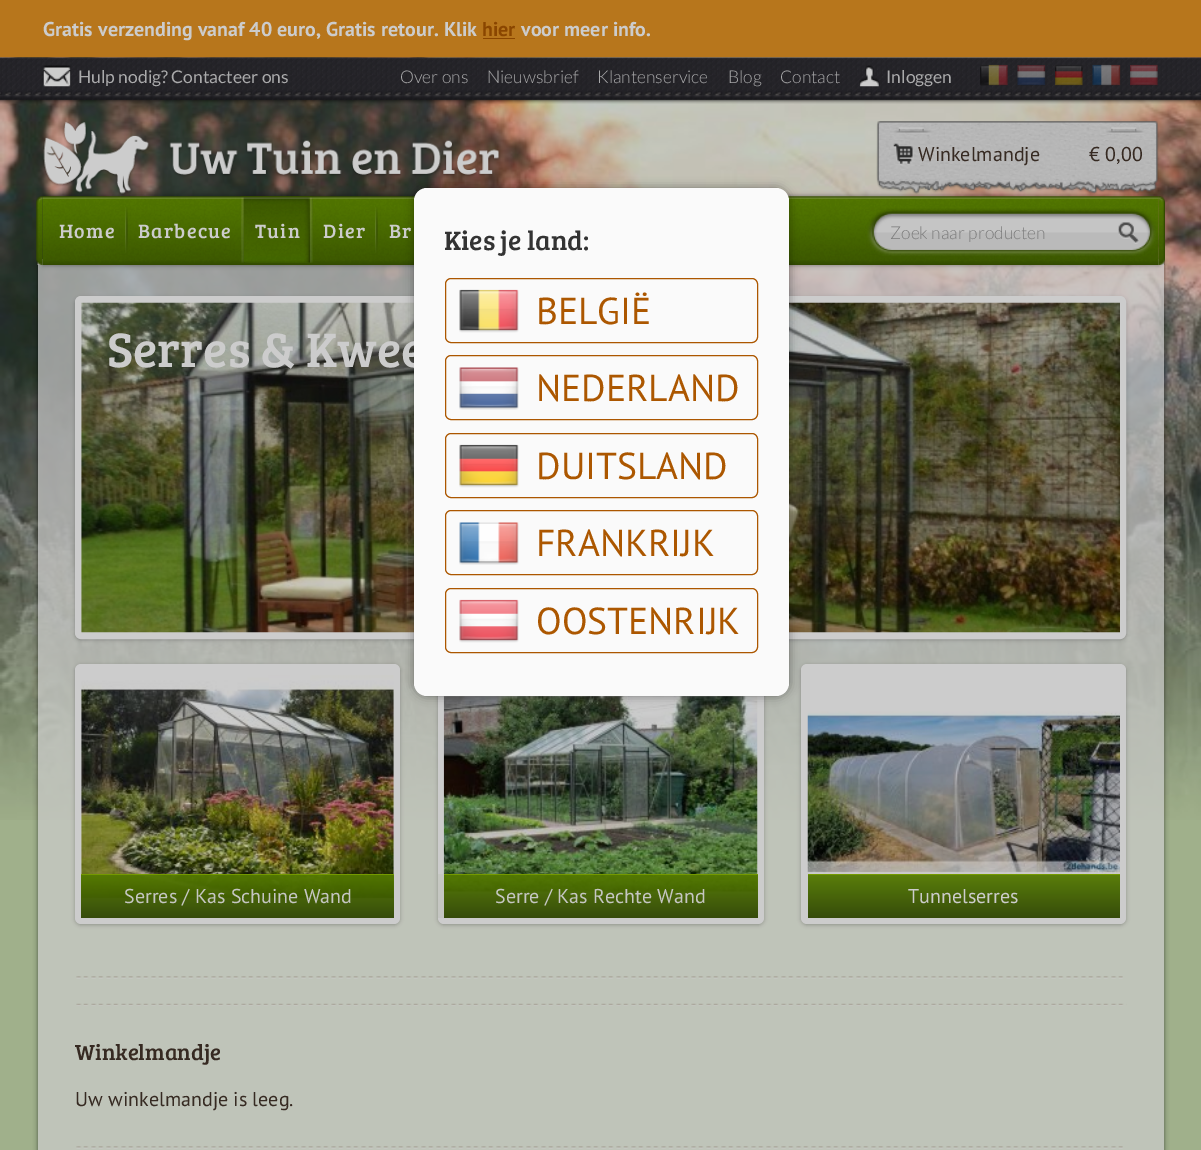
%!PS-Adobe-3.0
%%BoundingBox: 0 0 1201 1150
%%LanguageLevel: 3
%%Pages: 1
%%EndComments
%%BeginProlog
/setalpha { dup .setfillconstantalpha .setstrokeconstantalpha } def
/rrect { 5 dict begin { /r /h /w /y /x } { exch def } forall
  x r add y moveto x w add y 2 copy h add r arct x w add y h add x 1 index r arct
  x y h add x y r arct x y 2 copy exch w add exch r arct closepath end } def
/softshadow { 12 dict begin { /a /b /q /h /w /y /x } { exch def } forall gsave /was 0 def
  9 -2 -9 { dup b mul 4 div /e exch def 1 sub .425 mul 2.718 exch exp 1 add a .99 .min exch div /now exch def
    1 1 now sub 1 was sub div sub setalpha /was now def
    w h .min e 2 mul add 0 gt { x e sub y e sub w e 2 mul add h e 2 mul add
      q e add b .6 mul add w h .min 2 div e add .min 0 .max rrect fill } if } for grestore end } def
/drawimage { 5 dict begin { /h /w /y /x /name } { exch def } forall
  gsave x y translate w h scale
  w h 8 [w 0 0 h 0 0] name (r) file false 3 colorimage grestore end } def
%%EndProlog
%%BeginSetup
<< /PageSize [1201 1150] /PageUsesTransparency true >> setpagedevice
%%EndSetup
%%Page: 1 1
0 .pushpdf14devicefilter
0 1150 translate 1 -1 scale
4 setmiterlimit
0.627 0.69 0.545 setrgbcolor
0 0 1201 1150 rectfill
0.718 0.463 0.11 setrgbcolor
0 0 1201 58 rectfill
0.541 0.275 0 setrgbcolor
483 38 32 1 rectfill
(images/1.raw) 0 57 1201 763 drawimage
(images/2.raw) 0 57 1201 47 drawimage
(images/3.raw) 42 65 29 22 drawimage
(images/4.raw) 859 65 21 22 drawimage
(images/5.raw) 980 64 28 22 drawimage
(images/6.raw) 1017 65 29 21 drawimage
(images/7.raw) 1055 65 28 21 drawimage
(images/8.raw) 1092 64 29 22 drawimage
(images/9.raw) 1130 64 28 22 drawimage
(images/10.raw) 43 122 457 73 drawimage
(images/11.raw) 876 121 283 74 drawimage
(images/12.raw) 893 143 21 23 drawimage
gsave
newpath 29 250 moveto 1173 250 lineto 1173 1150 lineto 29 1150 lineto closepath 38 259 moveto 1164 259 lineto 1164 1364 lineto 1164 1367.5 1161.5 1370 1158 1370 curveto 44 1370 lineto 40.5 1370 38 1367.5 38 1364 curveto closepath eoclip newpath
0 setgray
38 259 1126 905 6 2.5 0.5 softshadow
grestore
0.7 setalpha
0.8 setgray
38 259 1126 891 rectfill
1 setalpha
0 setgray
43 196 1116 69 0 2.5 0.4 softshadow
(images/13.raw) 42 196 1117 69 drawimage
(images/14.raw) 36 196 7 69 drawimage
(images/15.raw) 125 207 3 46 drawimage
(images/16.raw) 241 209 1 42 drawimage
(images/17.raw) 241 196 72 67 drawimage
(images/18.raw) 243 197 70 66 drawimage
(images/19.raw) 375 207 3 46 drawimage
(images/20.raw) 1158 196 7 69 drawimage
(images/21.raw) 867 208 289 48 drawimage
(images/22.raw) 1118 222 21 22 drawimage
75 298 1051 342 6 2 0.25 softshadow
0.8 setgray
78 299 1045 337 3 rrect gsave fill grestore
6 setlinewidth
stroke
(images/23.raw) 81 302 1039 331 drawimage
0 setgray
75 665 325 260 6 2 0.25 softshadow
0.8 setgray
75 664 325 260 6 rrect fill
(images/24.raw) 81 675 313 226 drawimage
0.95 setalpha
gsave newpath 81 874 moveto 394 874 lineto 394 918 lineto 81 918 lineto closepath clip newpath
<< /ShadingType 2 /ColorSpace /DeviceRGB /Coords [238 874 238 918] /Extend [true true] /Function << /FunctionType 2 /Domain [0 1] /C0 [0.333 0.482 0] /C1 [0.18 0.271 0] /N 1 >> >> shfill grestore
0.463 0.608 0 setrgbcolor
81 874 313 1 rectfill
1 setalpha
0 setgray
438 665 326 260 6 2 0.25 softshadow
0.8 setgray
438 664 326 260 6 rrect fill
(images/25.raw) 443 696 315 204 drawimage
0.95 setalpha
gsave newpath 438 874 moveto 758 874 lineto 758 918 lineto 438 918 lineto closepath clip newpath
<< /ShadingType 2 /ColorSpace /DeviceRGB /Coords [601 874 601 918] /Extend [true true] /Function << /FunctionType 2 /Domain [0 1] /C0 [0.333 0.482 0] /C1 [0.18 0.271 0] /N 1 >> >> shfill grestore
0.463 0.608 0 setrgbcolor
444 874 314 1 rectfill
0.8 setgray
438 874 6 44 rectfill
1 setalpha
0 setgray
801 665 325 260 6 2 0.25 softshadow
0.8 setgray
801 664 325 260 6 rrect fill
(images/26.raw) 807 711 313 168 drawimage
0.95 setalpha
gsave newpath 808 875 moveto 1120 875 lineto 1120 918 lineto 808 918 lineto closepath clip newpath
<< /ShadingType 2 /ColorSpace /DeviceRGB /Coords [964 874 964 918] /Extend [true true] /Function << /FunctionType 2 /Domain [0 1] /C0 [0.333 0.482 0] /C1 [0.18 0.271 0] /N 1 >> >> shfill grestore
1 setalpha
0.459 0.604 0.004 setrgbcolor
808 874 312 1 rectfill
(images/27.raw) 76 976 1047 3 drawimage
(images/28.raw) 76 1003 1051 3 drawimage
(images/27.raw) 76 1146 1047 3 drawimage
0 setgray
414 188 375 508 13 5 0.4 softshadow
/PTSans-Bold [20 0 0 -20 0 0] selectfont
0.8 setgray
43 36 moveto (Gratis verzending vanaf 40 euro, Gratis retour. Klik) show
0.541 0.275 0 setrgbcolor
482 36 moveto (hier) show
0.8 setgray
521 36 moveto (voor meer info.) show
/Lato-Regular [17.5 0 0 -17.5 0 0] selectfont
0.667 0.667 0.671 setrgbcolor
78 83 moveto (Hulp nodig? Contacteer ons) show
/Lato-Light [17.5 0 0 -17.5 0 0] selectfont
400 83 moveto (Over ons) show
487 83 moveto (Nieuwsbrief) show
597 83 moveto (Klantenservice) show
728 83 moveto (Blog) show
780 83 moveto (Contact) show
/Lato-Regular [17.5 0 0 -17.5 0 0] selectfont
886 83 moveto (Inloggen) show
/PTSans-Regular [20 0 0 -20 0 0] selectfont
0.212 0.165 0.133 setrgbcolor
918 161 moveto (Winkelmandje) show
1089 161 moveto (€ 0,00) show
/BreeSerif-Regular [20 0 0 -20 0 0] selectfont
0.8 setgray
59 238 moveto 1.25 0 (Home) ashow
138 238 moveto 1.25 0 (Barbecue) ashow
255 238 moveto 1.25 0 (Tuin) ashow
323 238 moveto 1.25 0 (Dier) ashow
389 238 moveto 1.25 0 (Br) ashow
/Lato-Light [17.5 0 0 -17.5 0 0] selectfont
0.478 setgray
890 239 moveto (Zoek naar producten) show
/BreeSerif-Regular [50 0 0 -50 0 0] selectfont
0.8 setgray
107 367 moveto (Serres & Kwee) show
/PTSans-Regular [20 0 0 -20 0 0] selectfont
0.773 0.776 0.761 setrgbcolor
124 903 moveto (Serres / Kas Schuine Wand) show
495 903 moveto (Serre / Kas Rechte Wand) show
0.8 setgray
908 903 moveto (Tunnelserres) show
/BreeSerif-Regular [22.5 0 0 -22.5 0 0] selectfont
0.212 0.165 0.133 setrgbcolor
75 1060 moveto (Winkelmandje) show
/PTSans-Regular [20 0 0 -20 0 0] selectfont
75 1106 moveto (Uw winkelmandje is leeg.) show
0.98 setgray
414 188 375 508 13 rrect fill
/BreeSerif-Regular [27.5 0 0 -27.5 0 0] selectfont
0.2 setgray
444 250 moveto (Kies je land:) show
0.675 0.341 0 setrgbcolor
1 setlinewidth
445.5 278.5 312 64 5.5 rrect stroke
(images/29.raw) 459 289 60 44 drawimage
/PTSans-Regular [37.5 0 0 -37.5 0 0] selectfont
536 324 moveto (BELGIË) show
445.5 355.5 312 64 5.5 rrect stroke
(images/30.raw) 459 367 60 43 drawimage
536 401 moveto (NEDERLAND) show
445.5 433.5 312 64 5.5 rrect stroke
(images/31.raw) 459 444 60 44 drawimage
536 479 moveto (DUITSLAND) show
445.5 510.5 312 64 5.5 rrect stroke
(images/32.raw) 459 522 60 43 drawimage
536 556 moveto (FRANKRIJK) show
445.5 588.5 312 64 5.5 rrect stroke
(images/33.raw) 459 599 60 44 drawimage
536 634 moveto (OOSTENRIJK) show
.poppdf14devicefilter showpage
%%EOF
